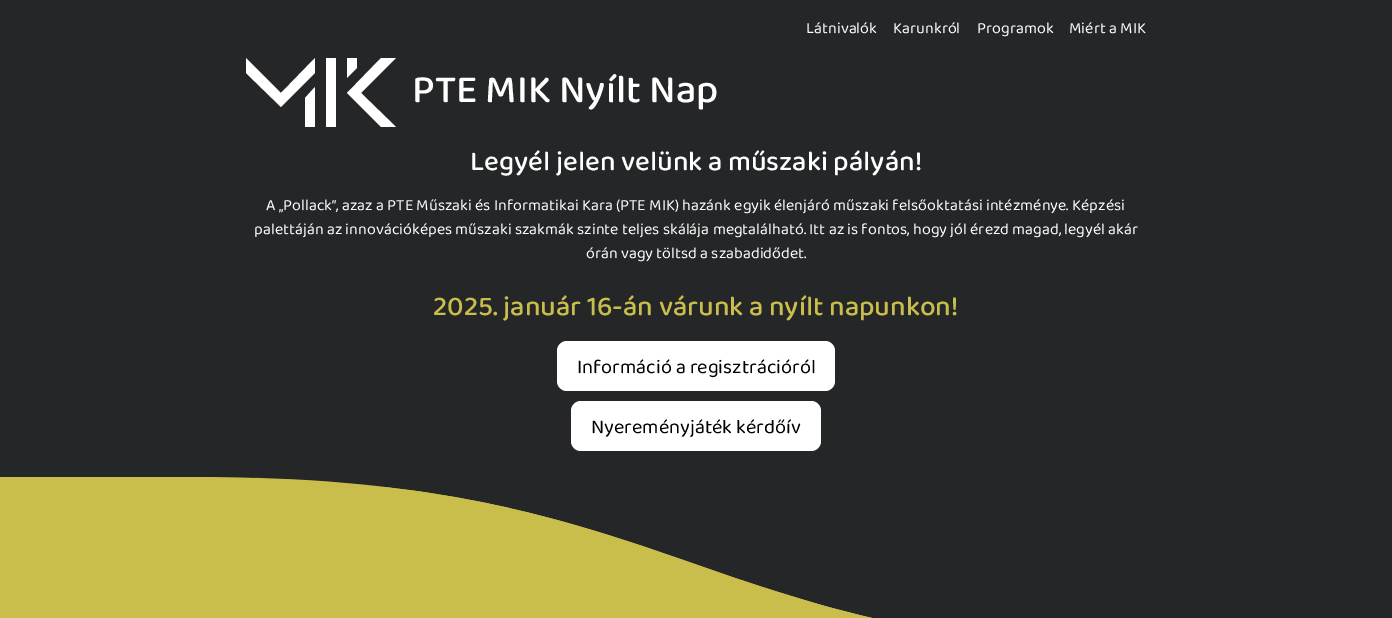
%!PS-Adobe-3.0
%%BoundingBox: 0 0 1392 618
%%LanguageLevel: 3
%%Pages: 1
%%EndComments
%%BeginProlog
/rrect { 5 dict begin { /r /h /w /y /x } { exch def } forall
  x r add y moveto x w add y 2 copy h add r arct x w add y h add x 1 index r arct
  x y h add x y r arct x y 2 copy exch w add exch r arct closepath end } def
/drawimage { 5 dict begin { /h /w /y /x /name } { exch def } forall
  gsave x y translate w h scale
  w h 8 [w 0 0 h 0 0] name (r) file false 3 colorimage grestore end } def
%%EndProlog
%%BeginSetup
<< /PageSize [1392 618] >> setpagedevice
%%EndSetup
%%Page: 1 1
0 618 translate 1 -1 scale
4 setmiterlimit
0.145 0.149 0.153 setrgbcolor
0 0 1392 618 rectfill
1 setgray
newpath 326 58 moveto 336 58 lineto 336 127 lineto 326 127 lineto closepath 315 87 moveto 315 127 lineto 305 127 lineto 305 98 lineto closepath 347 78 moveto 347 58 lineto 357 58 lineto 357 68 lineto closepath 281 93 moveto 246 58 lineto 246 73 lineto 281 107 lineto 315 73 lineto 315 58 lineto closepath 361 93 moveto 396 58 lineto 381 58 lineto 347 93 lineto 381 127 lineto 396 127 lineto closepath fill
557 341 278 50 10 rrect fill
571 401 250 50 10 rrect fill
0.788 0.741 0.294 setrgbcolor
0 477 196 141 rectfill
(images/1.raw) 196 477 677 141 drawimage
/BalooChettan2-Regular [16 0 0 -16 0 0] selectfont
1 setgray
806 33 moveto (Látnivalók) show
893 33 moveto (Karunkról) show
977 33 moveto (Programok) show
1069 33 moveto (Miért a MIK) show
/BalooChettan2-Medium [40 0 0 -40 0 0] selectfont
412 102 moveto (PTE MIK Nyílt Nap) show
/BalooChettan2-Medium [28 0 0 -28 0 0] selectfont
470 170 moveto (Legyél jelen velünk a műszaki pályán!) show
/BalooChettan2-Regular [16 0 0 -16 0 0] selectfont
266 210 moveto (A „Pollack”, azaz a PTE Műszaki és Informatikai Kara \(PTE MIK\) hazánk egyik élenjáró műszaki felsőoktatási intézménye. Képzési) show
254 234 moveto (palettáján az innovációképes műszaki szakmák szinte teljes skálája megtalálható. Itt az is fontos, hogy jól érezd magad, legyél akár) show
586 258 moveto (órán vagy töltsd a szabadidődet.) show
/BalooChettan2-Medium [28 0 0 -28 0 0] selectfont
0.788 0.741 0.294 setrgbcolor
433 315 moveto (2025. január 16-án várunk a nyílt napunkon!) show
/BalooChettan2-Regular [20 0 0 -20 0 0] selectfont
0 setgray
577 373 moveto (Információ a regisztrációról) show
591 433 moveto (Nyereményjáték kérdőív) show
showpage
%%EOF
